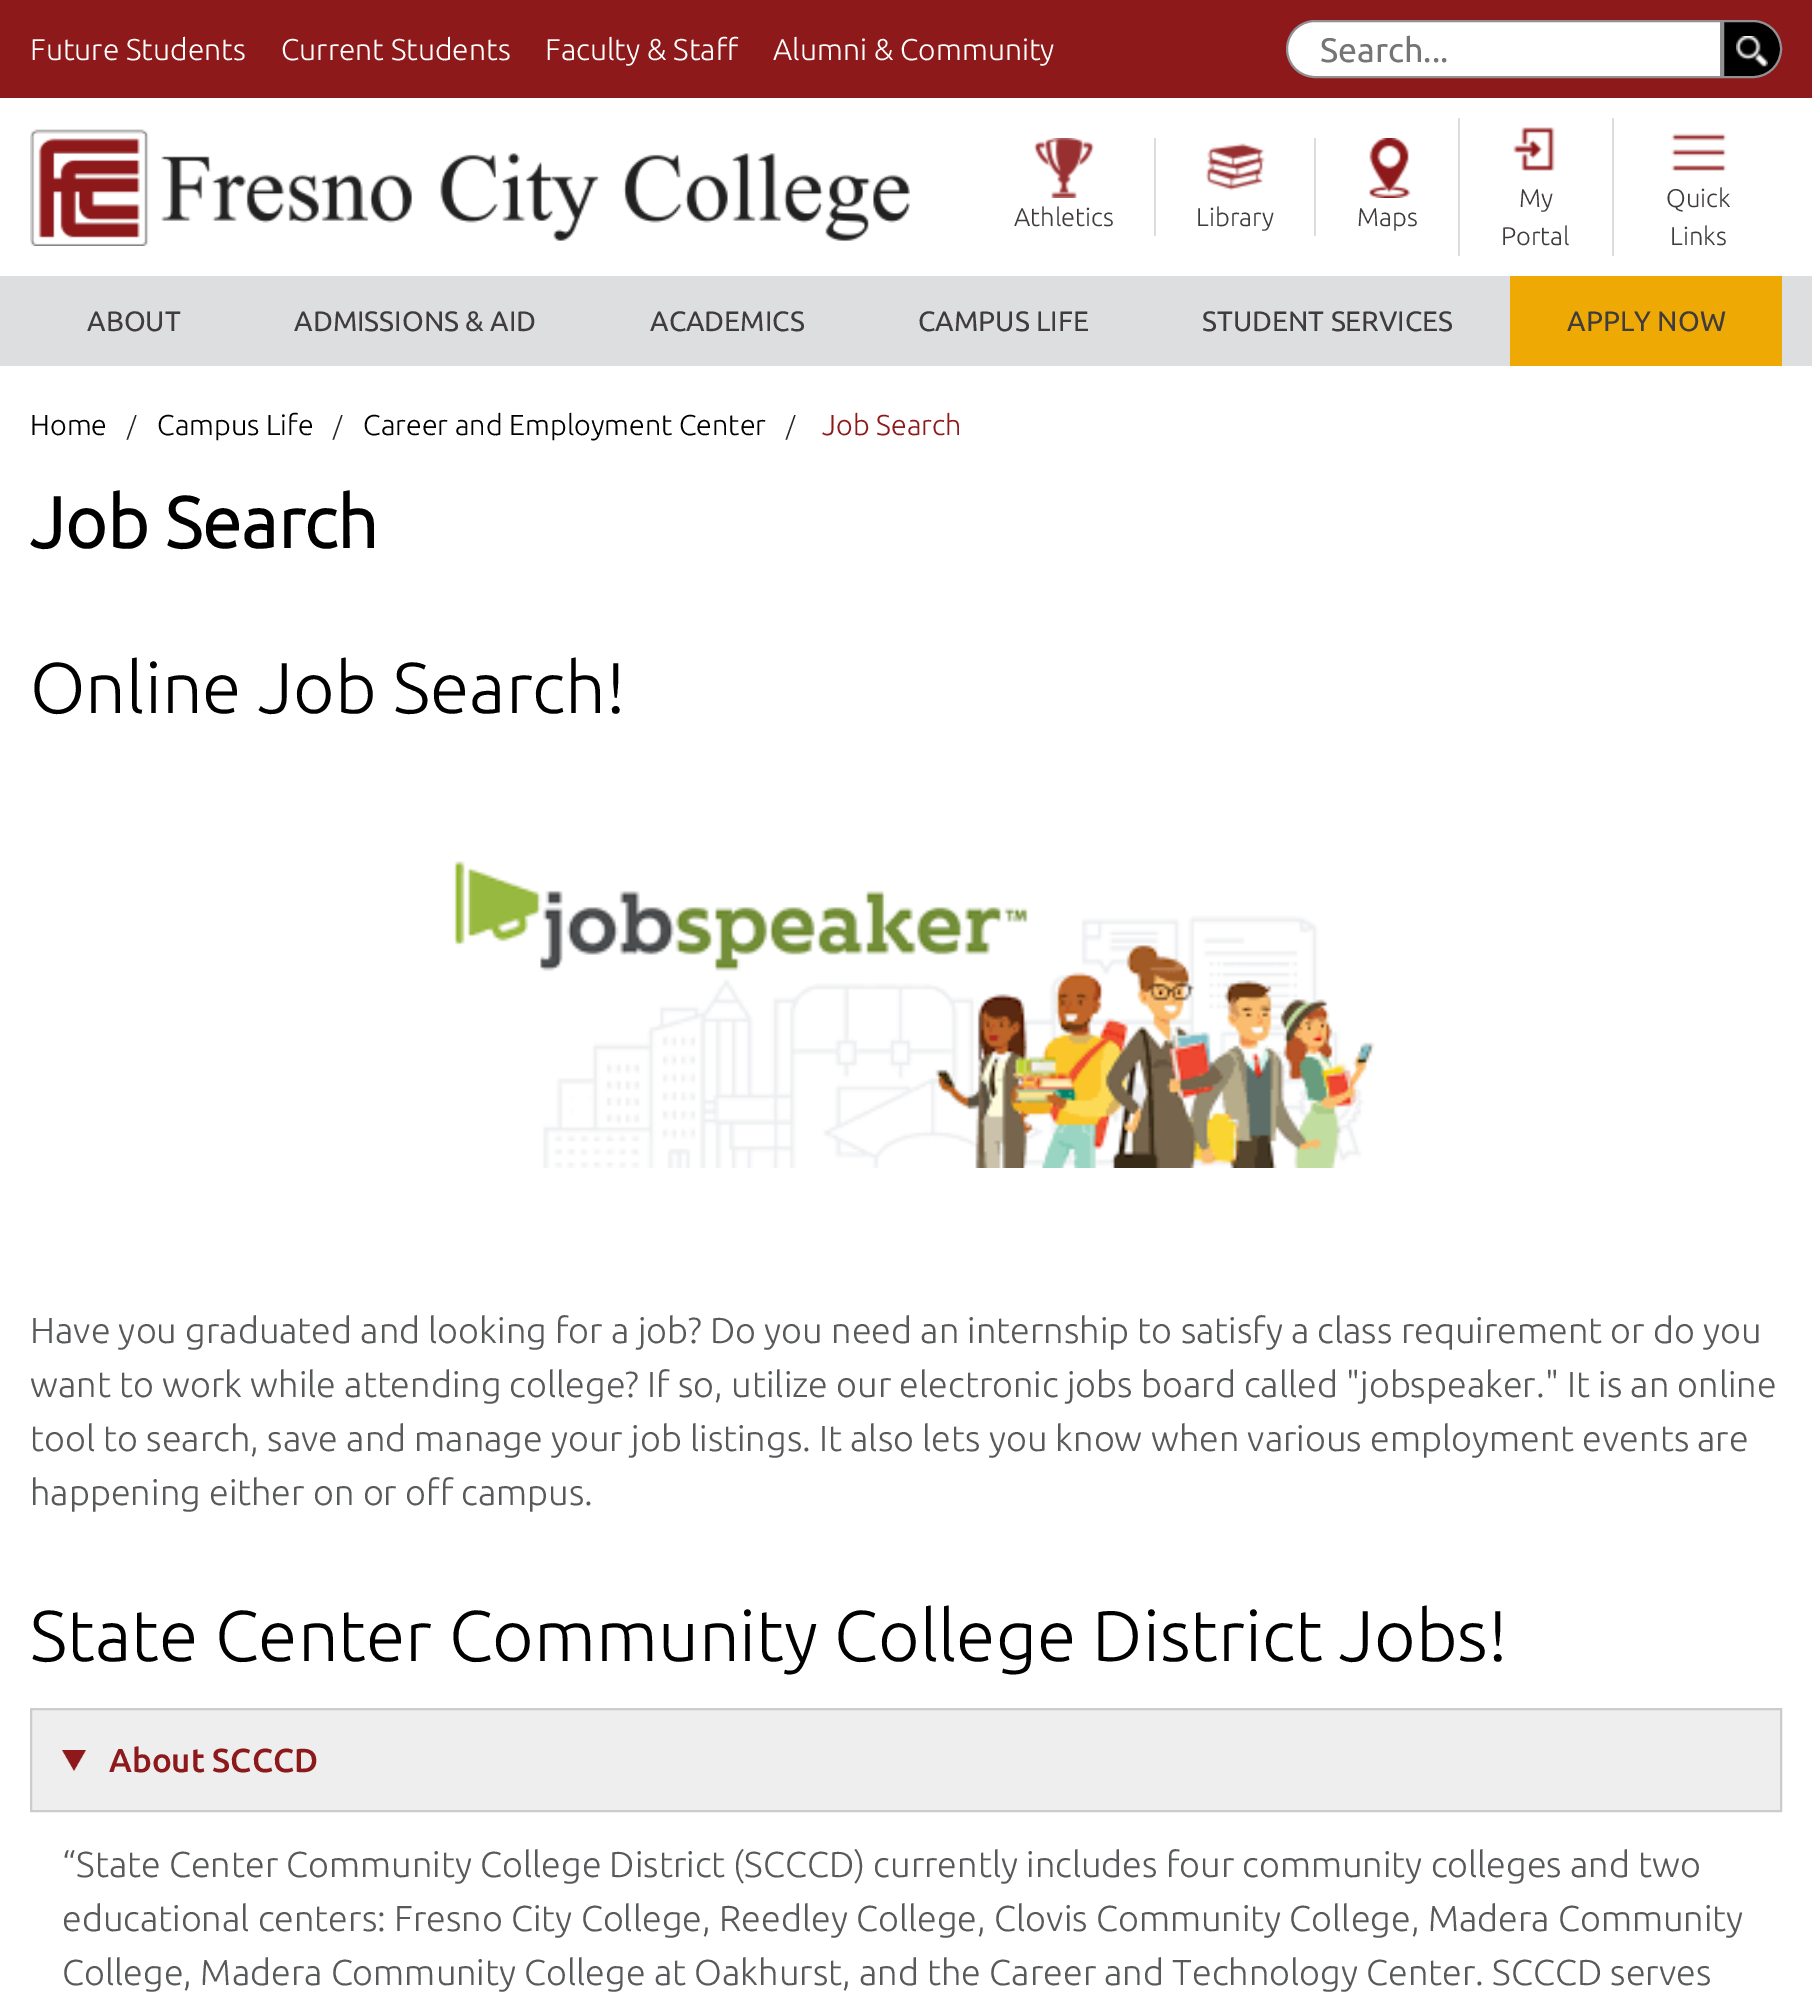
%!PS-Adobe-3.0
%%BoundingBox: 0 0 1812 2009
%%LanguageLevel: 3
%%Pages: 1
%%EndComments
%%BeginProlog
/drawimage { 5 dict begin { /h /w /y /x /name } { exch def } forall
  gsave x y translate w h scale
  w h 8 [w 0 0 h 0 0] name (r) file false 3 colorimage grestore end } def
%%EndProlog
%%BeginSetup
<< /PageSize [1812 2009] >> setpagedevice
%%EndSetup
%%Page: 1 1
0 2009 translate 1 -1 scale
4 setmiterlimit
1 setgray
0 0 1812 2009 rectfill
0.553 0.098 0.106 setrgbcolor
0 0 1812 98 rectfill
1 setgray
newpath 1315 21 moveto 1721 21 lineto 1721 77 lineto 1315 77 lineto 1299.5 77 1287 64.5 1287 49 curveto 1287 33.5 1299.5 21 1315 21 curveto closepath gsave fill grestore
0.569 0.569 0.576 setrgbcolor
2 setlinewidth
stroke
0 setgray
newpath 1723 21 moveto 1753 21 lineto 1768.5 21 1781 33.5 1781 49 curveto 1781 64.5 1768.5 77 1753 77 curveto 1723 77 lineto closepath gsave fill grestore
0.569 0.569 0.576 setrgbcolor
stroke
(images/1.raw) 1736 36 32 31 drawimage
(images/2.raw) 30 129 880 117 drawimage
(images/3.raw) 1034 138 60 60 drawimage
(images/4.raw) 1206 143 59 48 drawimage
0.867 setgray
1154 138 2 98 rectfill
(images/5.raw) 1369 138 42 60 drawimage
1314 138 2 98 rectfill
(images/6.raw) 1513 127 42 44 drawimage
1458 118 2 138 rectfill
(images/7.raw) 1671 133 56 38 drawimage
1612 118 2 138 rectfill
0.867 0.871 0.878 setrgbcolor
0 276 1812 90 rectfill
0.933 0.663 0.016 setrgbcolor
1510 276 272 90 rectfill
(images/8.raw) 453 861 922 307 drawimage
0.933 setgray
newpath 31 1709 moveto 1781 1709 lineto 1781 1811 lineto 31 1811 lineto closepath gsave fill grestore
0.8 setgray
stroke
(images/9.raw) 62 1750 24 21 drawimage
/Ubuntu-Light [30 0 0 -30 0 0] selectfont
1 setgray
30 60 moveto (Future Students) show
281 60 moveto (Current Students) show
545 60 moveto (Faculty & Staff) show
773 60 moveto (Alumni & Community) show
/Ubuntu-Regular [34 0 0 -34 0 0] selectfont
0.459 setgray
1320 62 moveto (Search...) show
/Ubuntu-Light [25.5 0 0 -25.5 0 0] selectfont
0.251 0.235 0.239 setrgbcolor
1014 226 moveto (Athletics) show
1196 226 moveto (Library) show
1357 226 moveto (Maps) show
1519 207 moveto (My) show
1501 245 moveto (Portal) show
1666 207 moveto (Quick) show
1670 245 moveto (Links) show
/Ubuntu-Regular [28 0 0 -28 0 0] selectfont
87 331 moveto (ABOUT) show
294 331 moveto (ADMISSIONS & AID) show
650 331 moveto (ACADEMICS) show
918 331 moveto (CAMPUS LIFE) show
1202 331 moveto (STUDENT SERVICES) show
1567 331 moveto (APPLY NOW) show
/Ubuntu-Light [28.75 0 0 -28.75 0 0] selectfont
0 setgray
30 435 moveto (Home) show
/Ubuntu-Light [25.5 0 0 -25.5 0 0] selectfont
0.129 0.145 0.161 setrgbcolor
127 435 moveto (/) show
/Ubuntu-Light [28.75 0 0 -28.75 0 0] selectfont
0 setgray
157 435 moveto (Campus Life) show
/Ubuntu-Light [25.5 0 0 -25.5 0 0] selectfont
0.129 0.145 0.161 setrgbcolor
333 435 moveto (/) show
/Ubuntu-Light [28.75 0 0 -28.75 0 0] selectfont
0 setgray
363 435 moveto (Career and Employment Center) show
/Ubuntu-Light [25.5 0 0 -25.5 0 0] selectfont
0.129 0.145 0.161 setrgbcolor
786 435 moveto (/) show
/Ubuntu-Light [28.75 0 0 -28.75 0 0] selectfont
0.553 0.098 0.106 setrgbcolor
822 435 moveto (Job Search) show
/Ubuntu-Bold [71.7 0 0 -71.7 0 0] selectfont
0 setgray
30 548 moveto (Job Search) show
/Ubuntu-Light [71.7 0 0 -71.7 0 0] selectfont
30 713 moveto (Online Job Search!) show
/Ubuntu-Light [36 0 0 -36 0 0] selectfont
0.345 0.349 0.357 setrgbcolor
30 1343 moveto (Have you graduated and looking for a job? Do you need an internship to satisfy a class requirement or do you) show
30 1397 moveto (want to work while attending college? If so, utilize our electronic jobs board called "jobspeaker." It is an online) show
30 1451 moveto (tool to search, save and manage your job listings. It also lets you know when various employment events are) show
30 1505 moveto (happening either on or off campus.) show
/Ubuntu-Light [71.7 0 0 -71.7 0 0] selectfont
0 setgray
30 1661 moveto (State Center Community College District Jobs!) show
/Ubuntu-Medium [33.25 0 0 -33.25 0 0] selectfont
0.553 0.098 0.106 setrgbcolor
109 1772 moveto (About SCCCD) show
/Ubuntu-Light [36 0 0 -36 0 0] selectfont
0.345 0.349 0.357 setrgbcolor
62 1877 moveto (“State Center Community College District \(SCCCD\) currently includes four community colleges and two) show
62 1931 moveto (educational centers: Fresno City College, Reedley College, Clovis Community College, Madera Community) show
62 1985 moveto (College, Madera Community College at Oakhurst, and the Career and Technology Center. SCCCD serves) show
showpage
%%EOF
